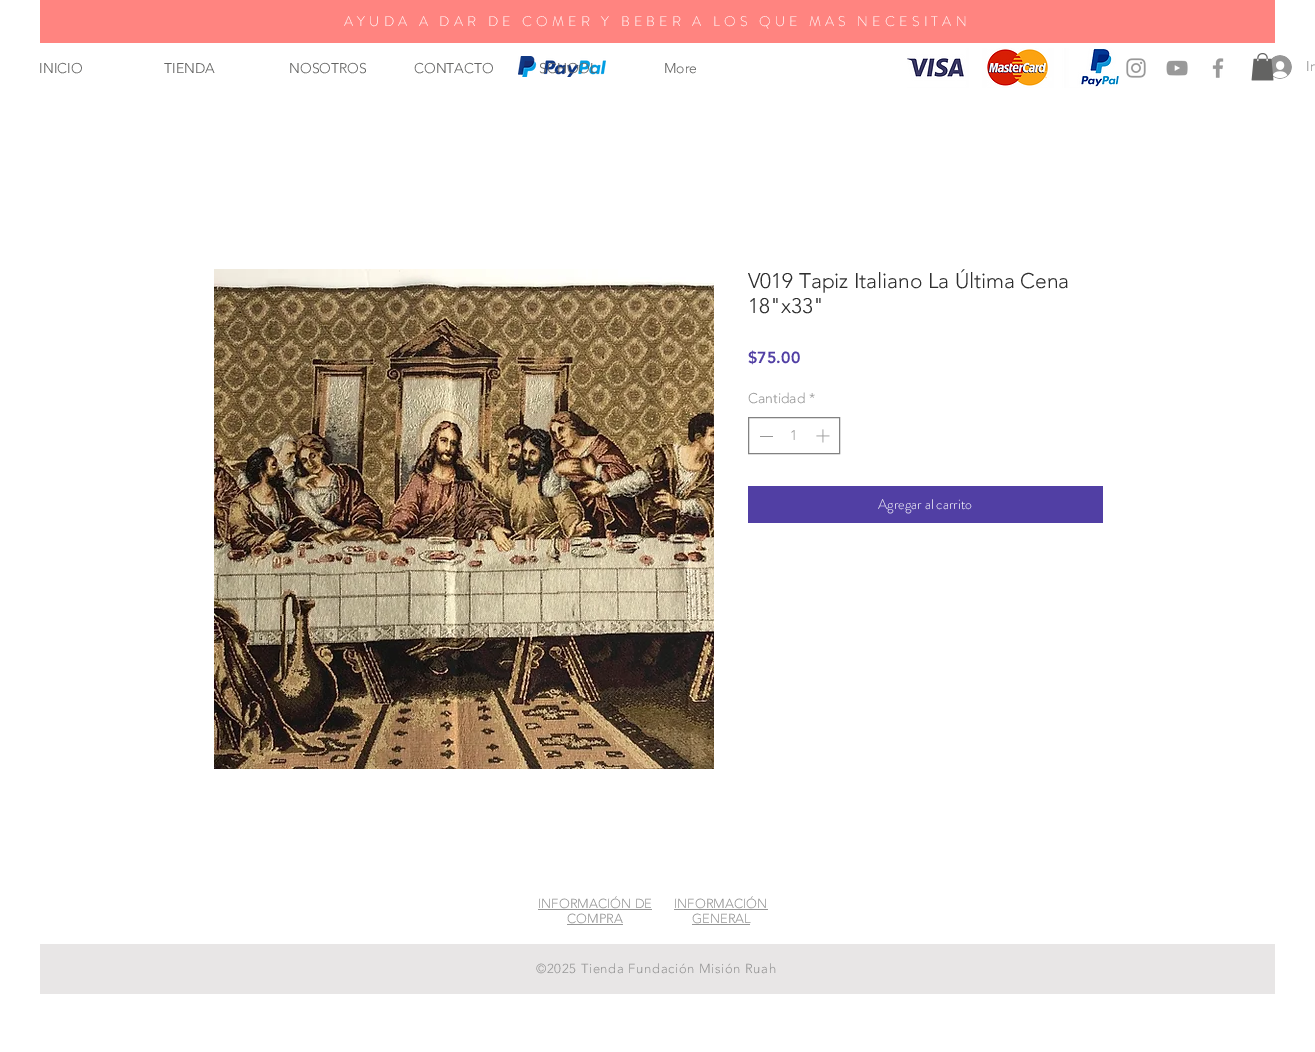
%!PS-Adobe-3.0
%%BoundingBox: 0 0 1315 1052
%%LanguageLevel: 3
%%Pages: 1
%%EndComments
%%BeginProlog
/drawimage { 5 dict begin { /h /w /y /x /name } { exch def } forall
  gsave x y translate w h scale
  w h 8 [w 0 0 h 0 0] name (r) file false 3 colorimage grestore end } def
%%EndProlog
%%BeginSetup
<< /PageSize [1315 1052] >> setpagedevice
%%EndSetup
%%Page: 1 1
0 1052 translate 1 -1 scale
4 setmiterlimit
1 setgray
0 0 1315 1052 rectfill
1 0.518 0.502 setrgbcolor
40 0 1235 43 rectfill
(images/1.raw) 518 56 88 21 drawimage
(images/2.raw) 907 48 213 40 drawimage
(images/3.raw) 1271 55 21 24 drawimage
(images/4.raw) 1126 58 20 20 drawimage
(images/5.raw) 1166 60 22 16 drawimage
(images/6.raw) 1212 58 12 20 drawimage
(images/7.raw) 1251 53 23 28 drawimage
(images/8.raw) 214 269 500 500 drawimage
0.51 setgray
748.5 417.5 91 36 rectstroke
0.588 setgray
760 436 13 1 rectfill
(images/9.raw) 816 429 14 14 drawimage
0.318 0.247 0.643 setrgbcolor
748 486 355 37 rectfill
0.588 setgray
538 909 114 1 rectfill
567 924 56 1 rectfill
674 909 94 1 rectfill
692 924 58 1 rectfill
0.91 0.902 0.902 setrgbcolor
40 944 1235 50 rectfill
/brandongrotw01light-Light [14 0 0 -14 0 0] selectfont
1 setgray
344 26 moveto 4.2 0 (AYUDA A DAR DE COMER Y BEBER A LOS QUE MAS NECESITAN) ashow
/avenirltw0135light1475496-Light [14 0 0 -14 0 0] selectfont
0.588 setgray
1306 71 moveto (In) show
0.388 0.388 0.384 setrgbcolor
39 73 moveto (INICIO) show
164 73 moveto (TIENDA) show
289 73 moveto (NOSOTROS) show
414 73 moveto (CONTACTO) show
539 73 moveto (SCHOOL) show
664 73 moveto (More) show
/avenirltw0135light1475496-Light [21 0 0 -21 0 0] selectfont
0.18 setgray
748 288 moveto (V019 Tapiz Italiano La Última Cena) show
748 313 moveto (18"x33") show
/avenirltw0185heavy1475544-Black [16 0 0 -16 0 0] selectfont
0.318 0.247 0.643 setrgbcolor
748 363 moveto ($75.00) show
/avenirltw0135light1475496-Light [14 0 0 -14 0 0] selectfont
0.588 setgray
748 403 moveto (Cantidad) show
809 403 moveto (*) show
790 440 moveto (1) show
/brandongrotw01light-Light [14 0 0 -14 0 0] selectfont
1 setgray
878 509 moveto (Agregar al carrito) show
/avenirltw0135light1475496-Light [13 0 0 -13 0 0] selectfont
0.588 setgray
538 908 moveto (INFORMACIÓN DE) show
567 923 moveto (COMPRA) show
674 908 moveto (INFORMACIÓN) show
692 923 moveto (GENERAL) show
536 973 moveto 0.65 0 (©2025 Tienda Fundación Misión Ruah) ashow
showpage
%%EOF
